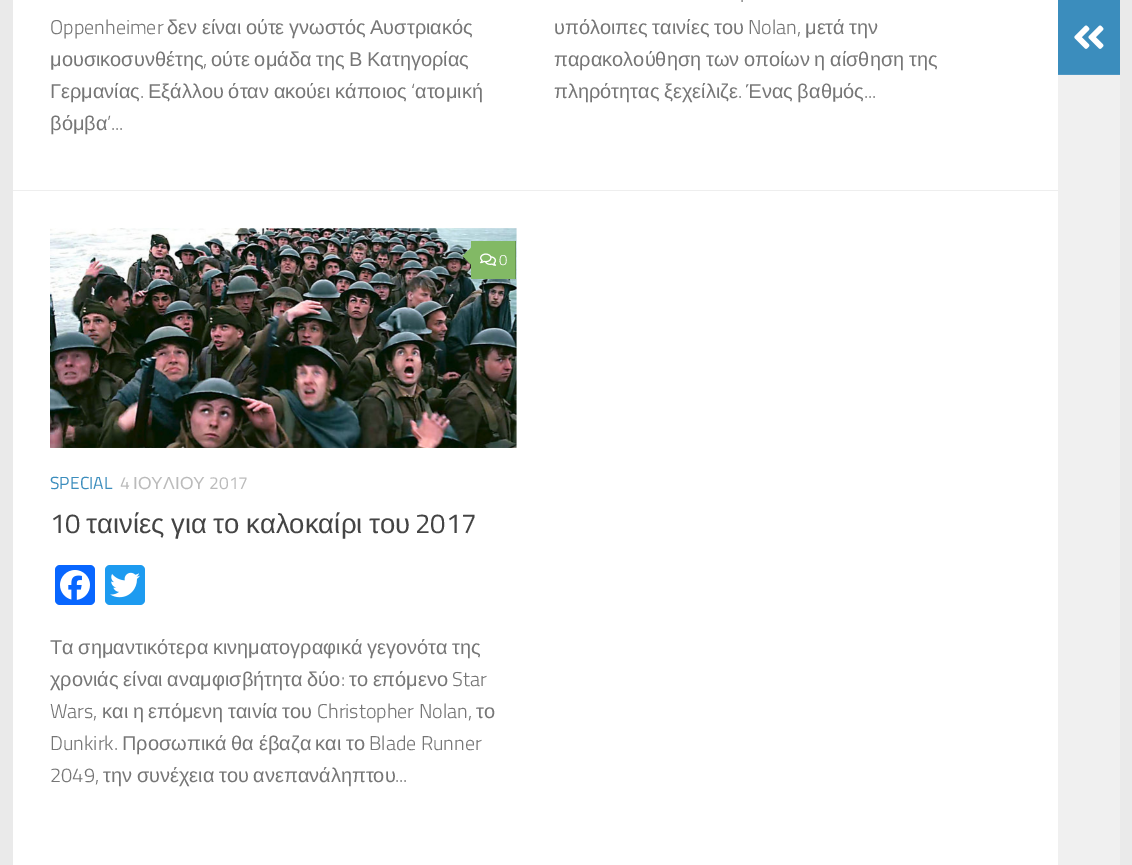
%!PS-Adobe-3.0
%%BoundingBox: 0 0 1132 865
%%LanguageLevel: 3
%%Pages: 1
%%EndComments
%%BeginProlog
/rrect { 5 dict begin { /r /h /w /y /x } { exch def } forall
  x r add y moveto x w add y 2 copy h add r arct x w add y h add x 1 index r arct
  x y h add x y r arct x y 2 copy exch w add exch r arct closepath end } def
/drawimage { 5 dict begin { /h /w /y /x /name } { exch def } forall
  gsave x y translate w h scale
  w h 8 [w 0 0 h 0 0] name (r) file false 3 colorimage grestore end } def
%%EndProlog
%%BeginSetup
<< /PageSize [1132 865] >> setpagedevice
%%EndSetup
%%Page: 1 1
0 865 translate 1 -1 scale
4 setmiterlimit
0.918 setgray
0 0 1132 865 rectfill
1 setgray
13 0 1045 865 rectfill
0.933 setgray
13 190 1045 1 rectfill
(images/1.raw) 50 228 467 220 drawimage
0.51 0.725 0.396 setrgbcolor
471 241 44 38 rectfill
0.408 0.58 0.318 setrgbcolor
515 241 1 38 rectfill
0.51 0.725 0.396 setrgbcolor
newpath 474 245 moveto 474 267.5 lineto 462.5 256 lineto closepath fill
(images/2.raw) 480 253 17 13 drawimage
0.031 0.4 1 setrgbcolor
55 565 40 40 5 rrect fill
(images/3.raw) 60 570 30 30 drawimage
0.114 0.608 0.941 setrgbcolor
105 565 40 40 5 rrect fill
(images/4.raw) 110 572 30 26 drawimage
0.231 0.553 0.741 setrgbcolor
1058 0 62 74 rectfill
0.31 0.596 0.769 setrgbcolor
1058 74 62 1 rectfill
(images/5.raw) 1074 25 30 24 drawimage
0.941 setgray
1058 75 62 790 rectfill
/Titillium-Light [20 0 0 -20 0 0] selectfont
0.463 setgray
50 34 moveto (Oppenheimer) show
/LiberationSans-Regular [20 0 0 -20 0 0] selectfont
167 34 moveto -1 0 32 (δεν είναι ούτε γνωστός Αυστριακός) widthshow
50 66 moveto (μουσικοσυνθέτης) show
/Titillium-Light [20 0 0 -20 0 0] selectfont
203 66 moveto (,) show
/LiberationSans-Regular [20 0 0 -20 0 0] selectfont
211 66 moveto -1 0 32 (ούτε ομάδα της Β Κατηγορίας) widthshow
50 98 moveto (Γερμανίας) show
148 98 moveto -1 0 32 (Εξάλλου όταν ακούει κάποιος) widthshow
/Titillium-Light [20 0 0 -20 0 0] selectfont
411 98 moveto (‘) show
/LiberationSans-Regular [20 0 0 -20 0 0] selectfont
415 98 moveto (ατομική) show
/Titillium-Light [20 0 0 -20 0 0] selectfont
140 98 moveto (.) show
/LiberationSans-Regular [20 0 0 -20 0 0] selectfont
50 130 moveto (βόμβα) show
/Titillium-Light [20 0 0 -20 0 0] selectfont
107 130 moveto (’...) show
740 2 moveto (.) show
/LiberationSans-Regular [20 0 0 -20 0 0] selectfont
554 34 moveto -1 0 32 (υπόλοιπες ταινίες του) widthshow
/Titillium-Light [20 0 0 -20 0 0] selectfont
748 34 moveto (Nolan,) show
/LiberationSans-Regular [20 0 0 -20 0 0] selectfont
805 34 moveto -1 0 32 (μετά την) widthshow
554 66 moveto -1 0 32 (παρακολούθηση των οποίων η αίσθηση της) widthshow
554 98 moveto -1 0 32 (πληρότητας ξεχείλιζε) widthshow
/Titillium-Light [20 0 0 -20 0 0] selectfont
738 98 moveto (.) show
/LiberationSans-Regular [20 0 0 -20 0 0] selectfont
746 98 moveto -1 0 32 (Ένας βαθμός) widthshow
/Titillium-Light [20 0 0 -20 0 0] selectfont
864 98 moveto (...) show
/Titillium-Light [15 0 0 -15 0 0] selectfont
1 setgray
499 265 moveto (0) show
/Titillium-Regular [17.5 0 0 -17.5 0 0] selectfont
0.231 0.553 0.741 setrgbcolor
50 489 moveto (SPECIAL) show
0.733 setgray
120 489 moveto (4) show
/LiberationSans-Regular [17.5 0 0 -17.5 0 0] selectfont
133 489 moveto (ΙΟΥΛΙΟΥ) show
/Titillium-Regular [17.5 0 0 -17.5 0 0] selectfont
209 489 moveto (2017) show
/Titillium-Regular [27.5 0 0 -27.5 0 0] selectfont
0.267 setgray
50 533 moveto (10) show
/LiberationSans-Regular [27.5 0 0 -27.5 0 0] selectfont
86 533 moveto -1 0 32 (ταινίες για το καλοκαίρι του) widthshow
/Titillium-Regular [27.5 0 0 -27.5 0 0] selectfont
415 533 moveto (2017) show
/LiberationSans-Regular [20 0 0 -20 0 0] selectfont
0.463 setgray
50 654 moveto -1 0 32 (Τα σημαντικότερα κινηματογραφικά γεγονότα της) widthshow
50 686 moveto -1 0 32 (χρονιάς είναι αναμφισβήτητα δύο) widthshow
/Titillium-Light [20 0 0 -20 0 0] selectfont
341 686 moveto (:) show
/LiberationSans-Regular [20 0 0 -20 0 0] selectfont
349 686 moveto -1 0 32 (το επόμενο) widthshow
/Titillium-Light [20 0 0 -20 0 0] selectfont
452 686 moveto (Star) show
50 718 moveto (Wars,) show
/LiberationSans-Regular [20 0 0 -20 0 0] selectfont
102 718 moveto (και) show
133 718 moveto (η) show
148 718 moveto (επόμενη) show
228 718 moveto (ταινία) show
282 718 moveto (του) show
/Titillium-Light [20 0 0 -20 0 0] selectfont
317 718 moveto (Christopher Nolan,) show
/LiberationSans-Regular [20 0 0 -20 0 0] selectfont
476 718 moveto (το) show
/Titillium-Light [20 0 0 -20 0 0] selectfont
50 750 moveto (Dunkirk.) show
/LiberationSans-Regular [20 0 0 -20 0 0] selectfont
122 750 moveto (Προσωπικά) show
231 750 moveto (θα) show
259 750 moveto (έβαζα) show
315 750 moveto (και) show
346 750 moveto (το) show
/Titillium-Light [20 0 0 -20 0 0] selectfont
369 750 moveto (Blade Runner) show
50 782 moveto (2049,) show
/LiberationSans-Regular [20 0 0 -20 0 0] selectfont
103 782 moveto -1 0 32 (την συνέχεια του ανεπανάληπτου) widthshow
/Titillium-Light [20 0 0 -20 0 0] selectfont
395 782 moveto (...) show
showpage
%%EOF
